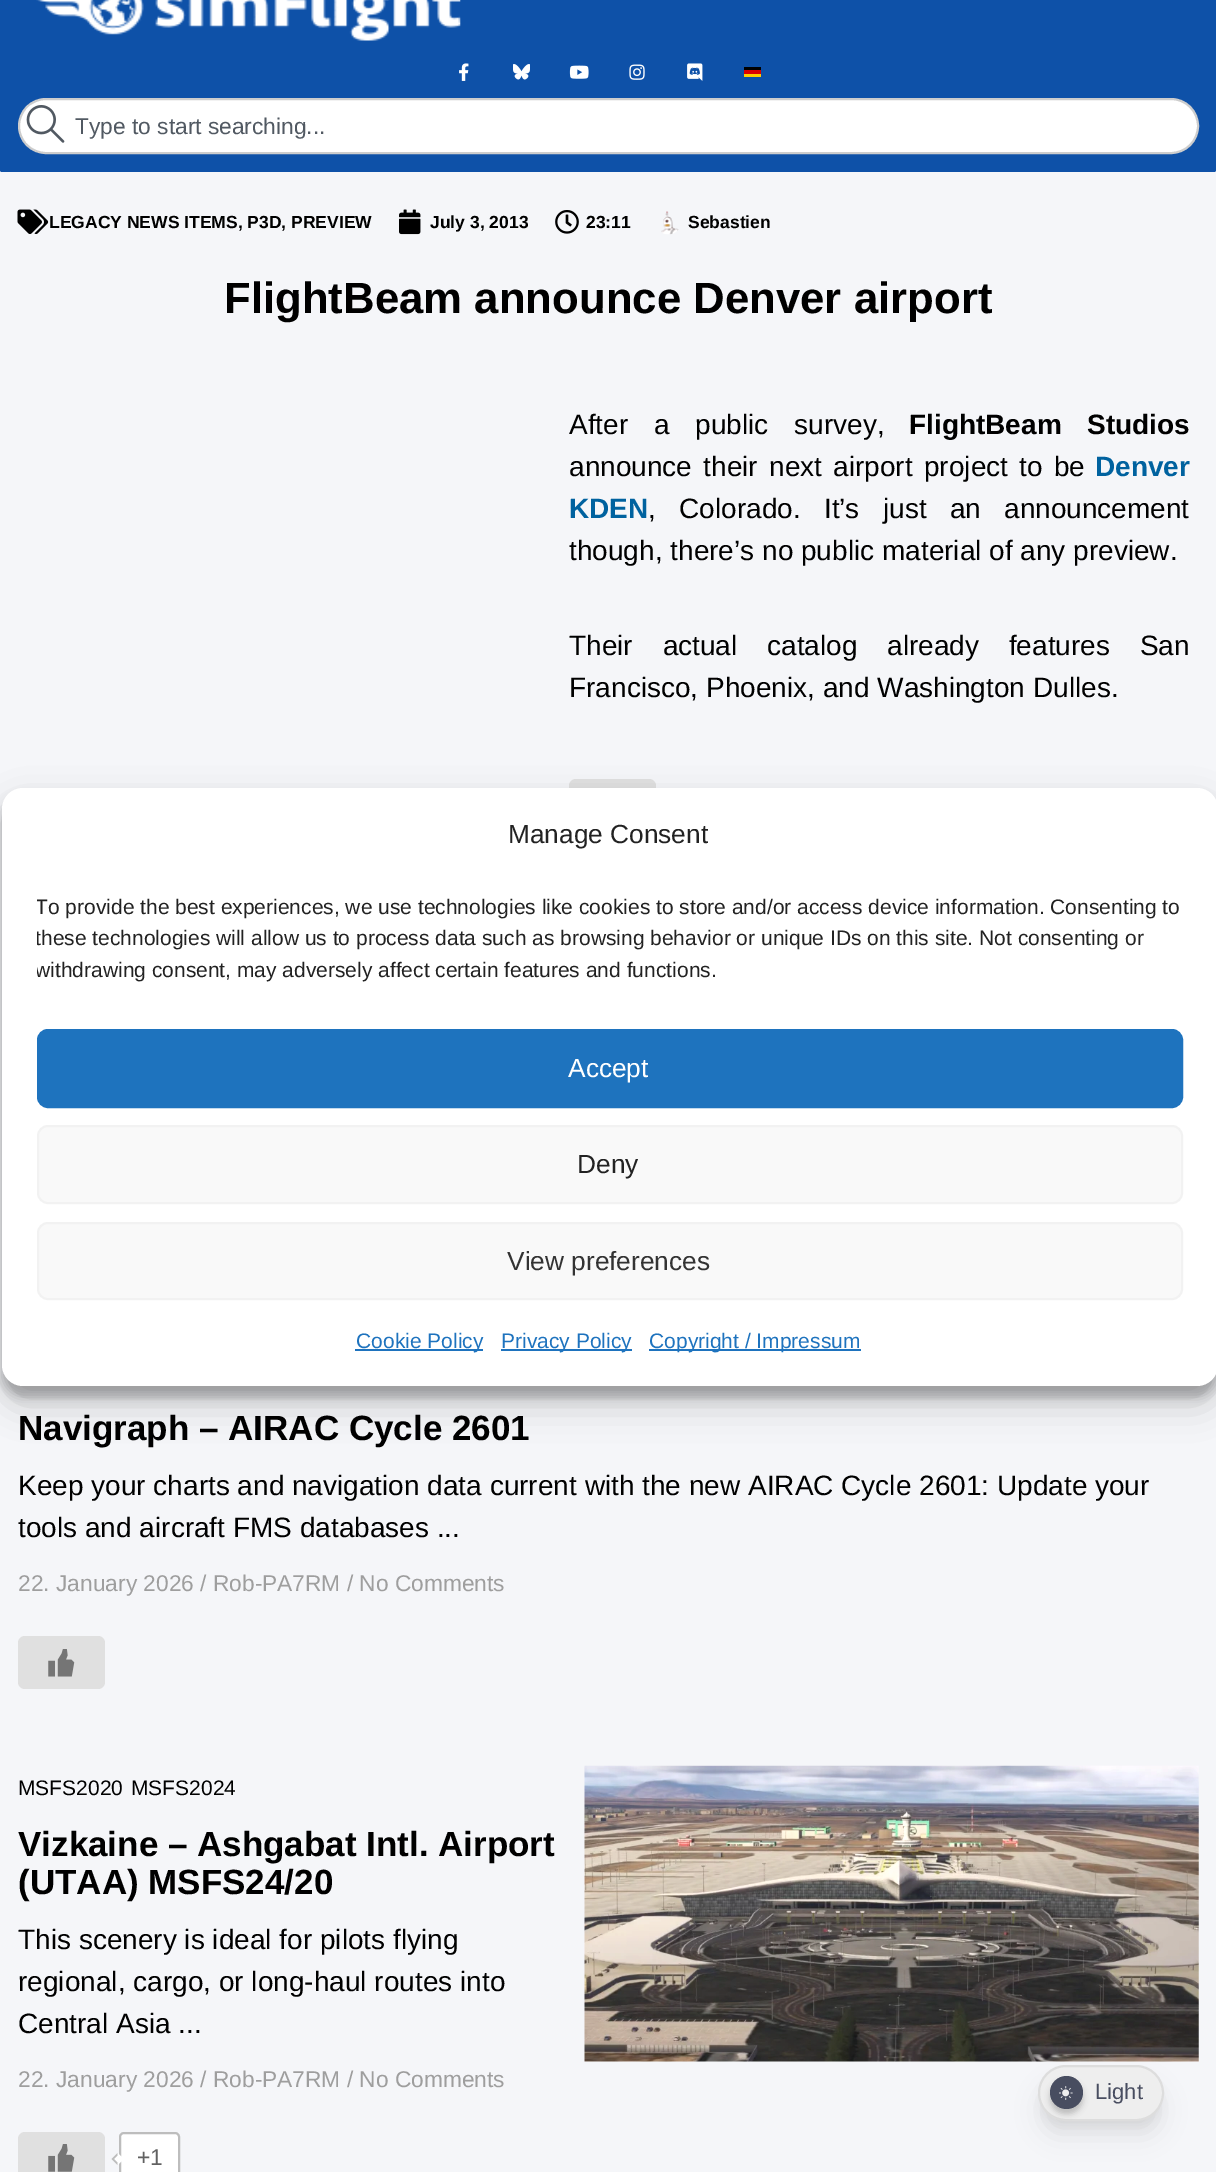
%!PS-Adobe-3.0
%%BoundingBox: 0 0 1216 2172
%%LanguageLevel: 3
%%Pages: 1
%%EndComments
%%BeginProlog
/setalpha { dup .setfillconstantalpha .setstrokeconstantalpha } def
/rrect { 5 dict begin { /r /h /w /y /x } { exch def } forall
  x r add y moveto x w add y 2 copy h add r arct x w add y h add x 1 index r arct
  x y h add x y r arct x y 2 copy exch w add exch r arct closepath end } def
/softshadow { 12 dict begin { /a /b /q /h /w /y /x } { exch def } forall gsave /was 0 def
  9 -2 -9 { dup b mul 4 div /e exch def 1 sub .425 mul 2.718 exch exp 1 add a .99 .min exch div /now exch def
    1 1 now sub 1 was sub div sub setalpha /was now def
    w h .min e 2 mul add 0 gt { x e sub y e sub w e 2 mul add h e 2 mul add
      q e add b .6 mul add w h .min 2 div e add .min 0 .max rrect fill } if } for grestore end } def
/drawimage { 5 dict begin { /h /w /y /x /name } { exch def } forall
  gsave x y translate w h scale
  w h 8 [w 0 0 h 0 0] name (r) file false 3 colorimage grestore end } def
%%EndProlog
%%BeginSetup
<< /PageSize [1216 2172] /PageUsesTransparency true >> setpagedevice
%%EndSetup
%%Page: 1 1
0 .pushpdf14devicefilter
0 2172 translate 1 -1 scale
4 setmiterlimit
0.961 0.965 0.976 setrgbcolor
0 0 1216 2172 rectfill
0.055 0.318 0.659 setrgbcolor
0 -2 1216 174 2 rrect fill
(images/1.raw) 36 0 425 41 drawimage
(images/2.raw) 459 63 10 18 drawimage
(images/3.raw) 513 64 17 16 drawimage
(images/4.raw) 569 65 20 14 drawimage
(images/5.raw) 629 64 16 16 drawimage
(images/6.raw) 687 63 16 18 drawimage
0 setgray
744 67 17 3 rectfill
0.867 0 0 setrgbcolor
744 70 17 4 rectfill
1 0.808 0 setrgbcolor
744 74 17 3 rectfill
1 setgray
19 99 1179 54 27 rrect gsave fill grestore
0.804 setgray
2 setlinewidth
stroke
(images/7.raw) 26 105 39 38 drawimage
(images/8.raw) 17 209 32 25 drawimage
(images/9.raw) 399 209 22 26 drawimage
(images/10.raw) 555 210 24 24 drawimage
(images/11.raw) 661 211 18 24 drawimage
0.878 setgray
569 779 87 52 7 rrect fill
18 1636 87 53 7 rrect fill
(images/12.raw) 48 1649 27 28 drawimage
(images/13.raw) 584 1765 615 297 drawimage
18 2132 87 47 7 rrect fill
(images/14.raw) 48 2144 27 28 drawimage
1 setgray
120 2133 59 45 4 rrect gsave fill grestore
0.741 setgray
stroke
1 setgray
newpath 117.5 2153 moveto 124 2159 lineto 117.5 2165 lineto 111.5 2159 lineto closepath fill
0.741 setgray
newpath 117.5 2165 moveto 111.5 2159 lineto 114 2159 lineto 117.5 2162.5 lineto closepath 111.5 2159 moveto 117.5 2153 lineto 117.5 2155.5 lineto 114 2159 lineto closepath fill
0 setgray
2 798 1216 599 21 5 0.23 softshadow
2 805 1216 599 21 17.5 0.19 softshadow
1 setgray
2 788 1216 598 21 rrect fill
0.118 0.451 0.745 setrgbcolor
38 1030 1144 77 10 rrect gsave fill grestore
stroke
0.976 setgray
38 1126 1144 77 10 rrect gsave fill grestore
0.949 setgray
stroke
0.976 setgray
38 1223 1144 76 10 rrect gsave fill grestore
0.949 setgray
stroke
0.118 0.451 0.745 setrgbcolor
355 1349 128 2 rectfill
501 1349 131 2 rectfill
649 1349 212 2 rectfill
0 setgray
1041 2076 119 49 24.5 5 0.05 softshadow
1043 2088 116 45 22.5 13 0.1 softshadow
0.933 setgray
1039 2066 124 54 27 rrect gsave fill grestore
0.867 setgray
stroke
0 setgray
1050 2081 33 33 16.5 3 0.2 softshadow
0.282 0.302 0.376 setrgbcolor
newpath 1066.5 2092.5 16.5 0 360 arc closepath fill
(images/15.raw) 1059 2086 14 14 drawimage
/LiberationSans-Regular [22.75 0 0 -22.75 0 0] selectfont
0.318 0.349 0.384 setrgbcolor
75 134 moveto (Type to start searching...) show
/LiberationSans-Bold [17.5 0 0 -17.5 0 0] selectfont
0 setgray
49 228 moveto (LEGACY NEWS ITEMS, P3D, PREVIEW) show
430 228 moveto (July 3, 2013) show
586 228 moveto (23:11) show
688 228 moveto (Sebastien) show
/LiberationSans-Bold [43.75 0 0 -43.75 0 0] selectfont
224 313 moveto (FlightBeam announce Denver airport) show
/LiberationSans-Regular [28 0 0 -28 0 0] selectfont
569 434 moveto 18 0 32 (After a public survey,) widthshow
/LiberationSans-Bold [28 0 0 -28 0 0] selectfont
909 434 moveto 18 0 32 (FlightBeam Studios) widthshow
/LiberationSans-Regular [28 0 0 -28 0 0] selectfont
569 476 moveto 3.5 0 32 (announce their next airport project to be) widthshow
/LiberationSans-Bold [28 0 0 -28 0 0] selectfont
0 0.384 0.624 setrgbcolor
1095 476 moveto (Denver) show
569 518 moveto (KDEN) show
/LiberationSans-Regular [28 0 0 -28 0 0] selectfont
0 setgray
648 518 moveto 15.5 0 32 (, Colorado. It’s just an announcement) widthshow
569 560 moveto (though, there’s no public material of any preview.) show
569 655 moveto 22 0 32 (Their actual catalog already features San) widthshow
569 697 moveto (Francisco, Phoenix, and Washington Dulles.) show
/LiberationSans-Bold [35 0 0 -35 0 0] selectfont
18 1440 moveto (Navigraph – AIRAC Cycle 2601) show
/LiberationSans-Regular [28 0 0 -28 0 0] selectfont
18 1495 moveto (Keep your charts and navigation data current with the new AIRAC Cycle 2601: Update your) show
18 1537 moveto (tools and aircraft FMS databases ...) show
/LiberationSans-Regular [22.75 0 0 -22.75 0 0] selectfont
0.62 setgray
18 1591 moveto (22. January 2026 / Rob-PA7RM / No Comments) show
/LiberationSans-Regular [21 0 0 -21 0 0] selectfont
0 setgray
18 1795 moveto (MSFS2020) show
131 1795 moveto (MSFS2024) show
/LiberationSans-Bold [35 0 0 -35 0 0] selectfont
18 1856 moveto (Vizkaine – Ashgabat Intl. Airport) show
18 1894 moveto (\(UTAA\) MSFS24/20) show
/LiberationSans-Regular [28 0 0 -28 0 0] selectfont
18 1949 moveto (This scenery is ideal for pilots flying) show
18 1991 moveto (regional, cargo, or long-haul routes into) show
18 2033 moveto (Central Asia ...) show
/LiberationSans-Regular [22.75 0 0 -22.75 0 0] selectfont
0.62 setgray
18 2087 moveto (22. January 2026 / Rob-PA7RM / No Comments) show
0.38 setgray
137 2165 moveto (+1) show
/LiberationSans-Regular [26.25 0 0 -26.25 0 0] selectfont
0.133 setgray
508 843 moveto (Manage Consent) show
gsave
37 891 1146 103 rectclip
/LiberationSans-Regular [21 0 0 -21 0 0] selectfont
35 914 moveto (To provide the best experiences, we use technologies like cookies to store and/or access device information. Consenting to) show
35 945 moveto (these technologies will allow us to process data such as browsing behavior or unique IDs on this site. Not consenting or) show
35 977 moveto (withdrawing consent, may adversely affect certain features and functions.) show
grestore
1 setgray
568 1077 moveto (Accept) show
0.133 setgray
577 1173 moveto (Deny) show
0.2 setgray
507 1270 moveto (View preferences) show
/LiberationSans-Regular [21 0 0 -21 0 0] selectfont
0.118 0.451 0.745 setrgbcolor
356 1348 moveto (Cookie Policy) show
501 1348 moveto (Privacy Policy) show
649 1348 moveto (Copyright / Impressum) show
/LiberationSans-Regular [22 0 0 -22 0 0] selectfont
0.282 0.302 0.376 setrgbcolor
1095 2099 moveto (Light) show
.poppdf14devicefilter showpage
%%EOF
